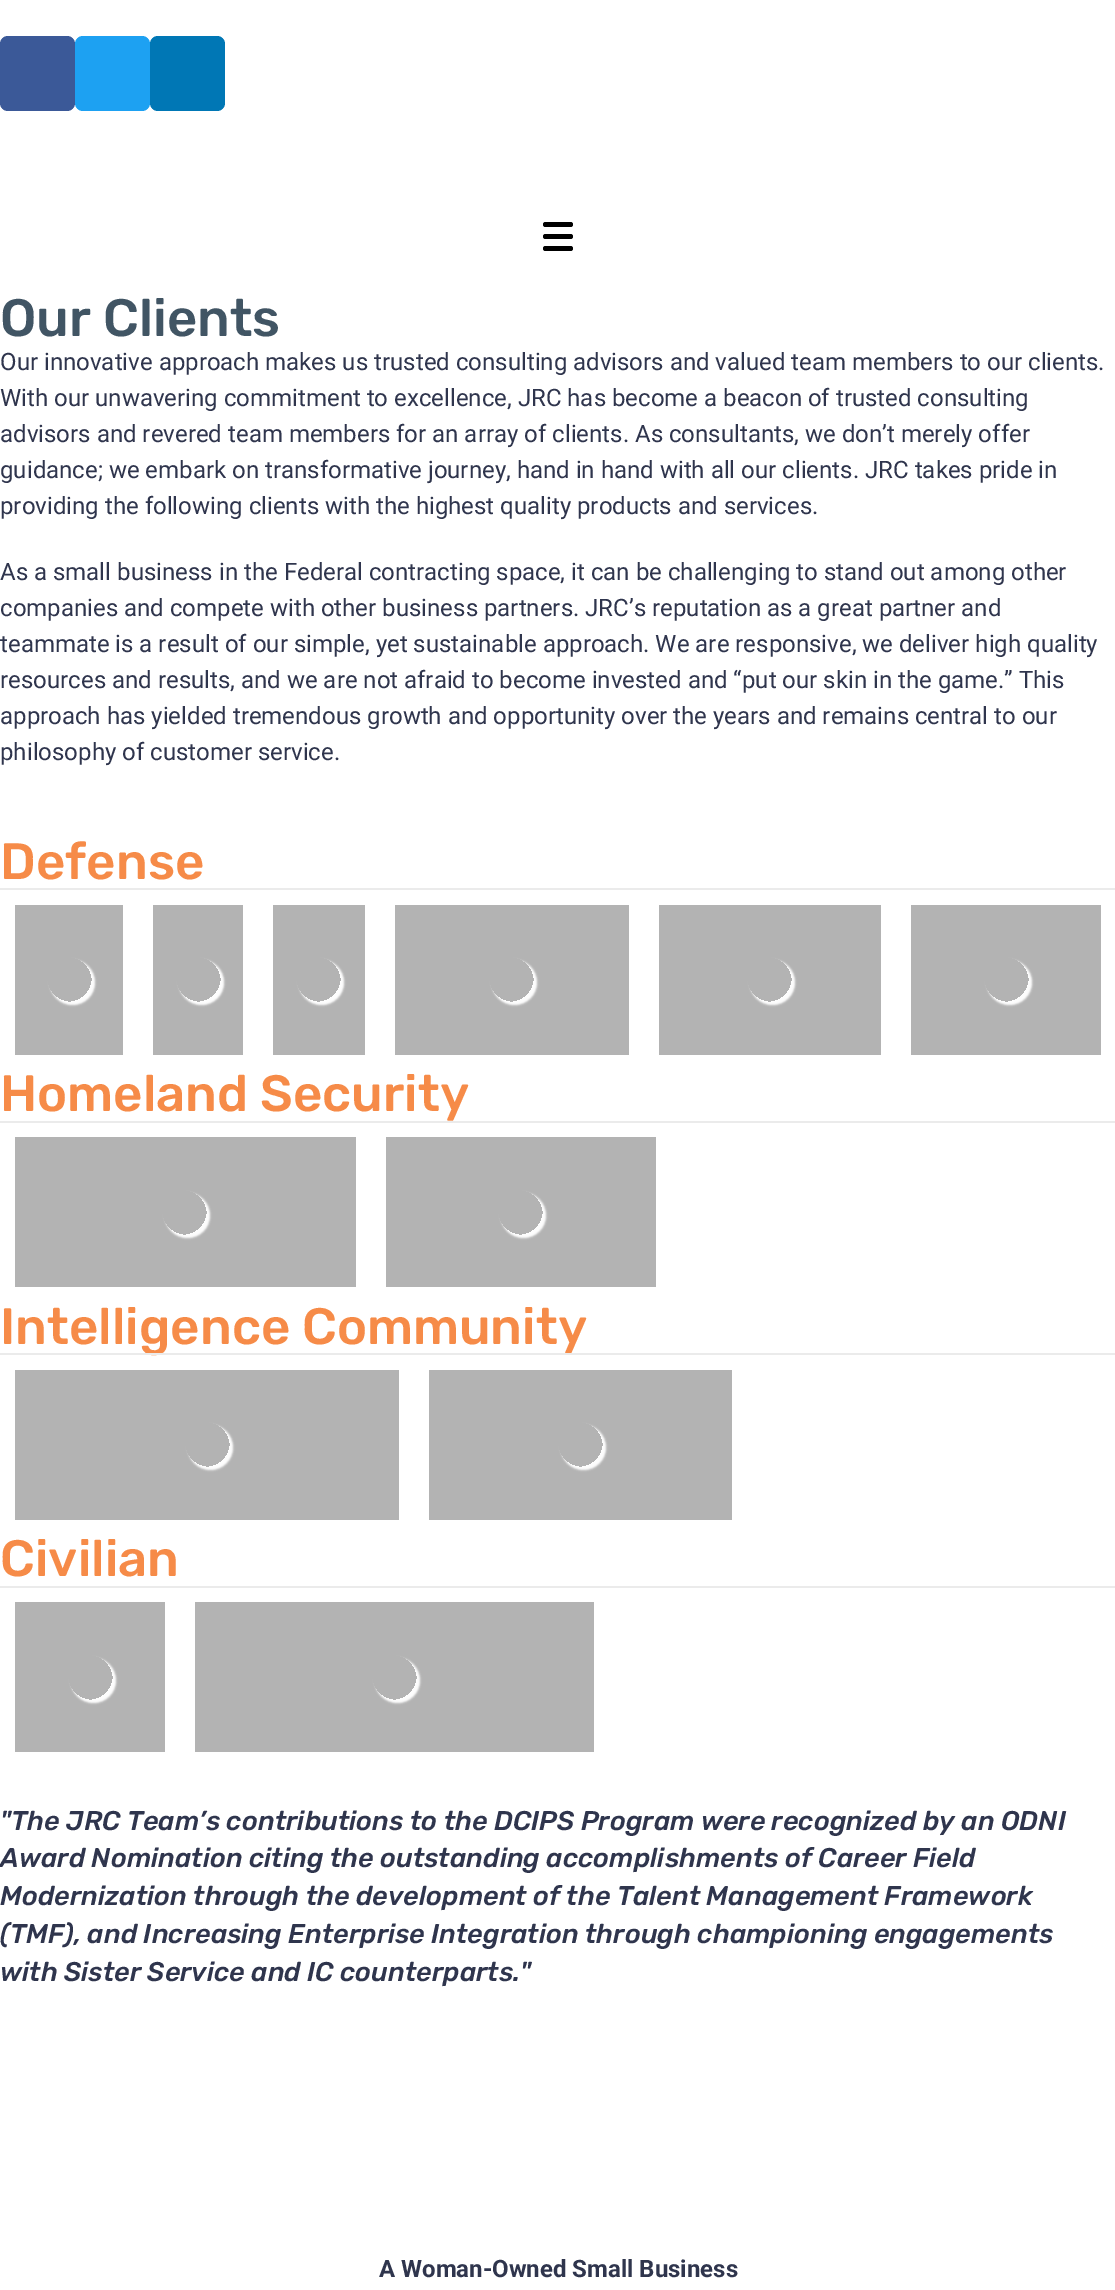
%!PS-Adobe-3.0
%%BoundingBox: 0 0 1115 2290
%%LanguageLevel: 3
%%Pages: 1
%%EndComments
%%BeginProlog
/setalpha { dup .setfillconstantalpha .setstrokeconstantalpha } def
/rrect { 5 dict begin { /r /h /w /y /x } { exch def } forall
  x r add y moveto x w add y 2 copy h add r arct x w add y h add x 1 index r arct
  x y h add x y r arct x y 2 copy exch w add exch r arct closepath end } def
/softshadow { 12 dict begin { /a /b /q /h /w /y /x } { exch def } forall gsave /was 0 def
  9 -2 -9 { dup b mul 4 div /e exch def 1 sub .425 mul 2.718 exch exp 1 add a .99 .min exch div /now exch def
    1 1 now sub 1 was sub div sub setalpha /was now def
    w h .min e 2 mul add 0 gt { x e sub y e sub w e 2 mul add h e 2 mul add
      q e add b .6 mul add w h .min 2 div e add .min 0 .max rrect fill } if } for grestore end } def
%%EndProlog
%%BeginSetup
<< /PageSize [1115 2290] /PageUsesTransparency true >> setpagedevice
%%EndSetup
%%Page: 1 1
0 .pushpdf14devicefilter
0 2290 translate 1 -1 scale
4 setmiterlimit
1 setgray
0 0 1115 2290 rectfill
0.231 0.349 0.596 setrgbcolor
0 36 75 75 8 rrect fill
0.114 0.631 0.949 setrgbcolor
75 36 75 75 8 rrect fill
0 0.467 0.71 setrgbcolor
150 36 75 75 8 rrect fill
0 setgray
543 234 30 5 2.5 rrect fill
543 222 30 5 2.5 rrect fill
543 246 30 5 2.5 rrect fill
0.922 setgray
0 888 1115 2 rectfill
0.702 setgray
15 905 108 150 rectfill
gsave
newpath 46 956 moveto 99 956 lineto 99 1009 lineto 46 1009 lineto closepath 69.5 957 moveto 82 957 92 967 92 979.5 curveto 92 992 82 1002 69.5 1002 curveto 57 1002 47 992 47 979.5 curveto 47 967 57 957 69.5 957 curveto closepath eoclip newpath
1 setgray
50 960 45 45 22.5 1 1 softshadow
grestore
153 905 90 150 rectfill
gsave
newpath 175 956 moveto 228 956 lineto 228 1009 lineto 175 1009 lineto closepath 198.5 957 moveto 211 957 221 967 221 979.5 curveto 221 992 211 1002 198.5 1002 curveto 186 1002 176 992 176 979.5 curveto 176 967 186 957 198.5 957 curveto closepath eoclip newpath
1 setgray
179 960 45 45 22.5 1 1 softshadow
grestore
273 905 92 150 rectfill
gsave
newpath 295 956 moveto 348 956 lineto 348 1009 lineto 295 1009 lineto closepath 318.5 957 moveto 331 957 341 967 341 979.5 curveto 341 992 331 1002 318.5 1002 curveto 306 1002 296 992 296 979.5 curveto 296 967 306 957 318.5 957 curveto closepath eoclip newpath
1 setgray
299 960 45 45 22.5 1 1 softshadow
grestore
395 905 234 150 rectfill
gsave
newpath 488 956 moveto 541 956 lineto 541 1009 lineto 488 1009 lineto closepath 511.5 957 moveto 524 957 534 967 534 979.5 curveto 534 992 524 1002 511.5 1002 curveto 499 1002 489 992 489 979.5 curveto 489 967 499 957 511.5 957 curveto closepath eoclip newpath
1 setgray
492 960 45 45 22.5 1 1 softshadow
grestore
659 905 222 150 rectfill
gsave
newpath 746 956 moveto 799 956 lineto 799 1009 lineto 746 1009 lineto closepath 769.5 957 moveto 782 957 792 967 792 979.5 curveto 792 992 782 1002 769.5 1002 curveto 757 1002 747 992 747 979.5 curveto 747 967 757 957 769.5 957 curveto closepath eoclip newpath
1 setgray
750 960 45 45 22.5 1 1 softshadow
grestore
911 905 190 150 rectfill
gsave
newpath 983 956 moveto 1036 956 lineto 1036 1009 lineto 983 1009 lineto closepath 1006.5 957 moveto 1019 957 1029 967 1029 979.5 curveto 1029 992 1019 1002 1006.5 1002 curveto 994 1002 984 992 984 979.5 curveto 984 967 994 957 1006.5 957 curveto closepath eoclip newpath
1 setgray
987 960 45 45 22.5 1 1 softshadow
grestore
0.922 setgray
0 1121 1115 2 rectfill
0.702 setgray
15 1137 341 150 rectfill
gsave
newpath 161 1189 moveto 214 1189 lineto 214 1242 lineto 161 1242 lineto closepath 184.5 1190 moveto 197 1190 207 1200 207 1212.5 curveto 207 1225 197 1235 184.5 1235 curveto 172 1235 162 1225 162 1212.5 curveto 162 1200 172 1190 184.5 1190 curveto closepath eoclip newpath
1 setgray
165 1193 45 45 22.5 1 1 softshadow
grestore
386 1137 270 150 rectfill
gsave
newpath 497 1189 moveto 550 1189 lineto 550 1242 lineto 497 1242 lineto closepath 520.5 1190 moveto 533 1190 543 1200 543 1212.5 curveto 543 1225 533 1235 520.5 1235 curveto 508 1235 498 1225 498 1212.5 curveto 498 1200 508 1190 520.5 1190 curveto closepath eoclip newpath
1 setgray
501 1193 45 45 22.5 1 1 softshadow
grestore
15 1370 384 150 rectfill
gsave
newpath 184 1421 moveto 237 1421 lineto 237 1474 lineto 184 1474 lineto closepath 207.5 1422 moveto 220 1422 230 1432 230 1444.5 curveto 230 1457 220 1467 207.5 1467 curveto 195 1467 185 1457 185 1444.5 curveto 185 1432 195 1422 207.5 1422 curveto closepath eoclip newpath
1 setgray
188 1425 45 45 22.5 1 1 softshadow
grestore
429 1370 303 150 rectfill
gsave
newpath 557 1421 moveto 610 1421 lineto 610 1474 lineto 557 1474 lineto closepath 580.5 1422 moveto 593 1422 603 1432 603 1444.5 curveto 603 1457 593 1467 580.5 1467 curveto 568 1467 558 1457 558 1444.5 curveto 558 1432 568 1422 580.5 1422 curveto closepath eoclip newpath
1 setgray
561 1425 45 45 22.5 1 1 softshadow
grestore
0.922 setgray
0 1586 1115 2 rectfill
0.702 setgray
15 1602 150 150 rectfill
gsave
newpath 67 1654 moveto 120 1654 lineto 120 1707 lineto 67 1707 lineto closepath 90.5 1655 moveto 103 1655 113 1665 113 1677.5 curveto 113 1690 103 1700 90.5 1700 curveto 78 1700 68 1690 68 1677.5 curveto 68 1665 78 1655 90.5 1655 curveto closepath eoclip newpath
1 setgray
71 1658 45 45 22.5 1 1 softshadow
grestore
195 1602 399 150 rectfill
gsave
newpath 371 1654 moveto 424 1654 lineto 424 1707 lineto 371 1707 lineto closepath 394.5 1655 moveto 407 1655 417 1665 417 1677.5 curveto 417 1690 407 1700 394.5 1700 curveto 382 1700 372 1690 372 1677.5 curveto 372 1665 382 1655 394.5 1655 curveto closepath eoclip newpath
1 setgray
375 1658 45 45 22.5 1 1 softshadow
grestore
/Rubik-Medium [52.5 0 0 -52.5 0 0] selectfont
0.255 0.333 0.392 setrgbcolor
0 336 moveto (Our Clients) show
/Roboto-Regular [24 0 0 -24 0 0] selectfont
0.184 0.208 0.302 setrgbcolor
0 370 moveto (Our innovative approach makes us trusted consulting advisors and valued team members to our clients.) show
0 406 moveto (With our unwavering commitment to excellence, JRC has become a beacon of trusted consulting) show
0 442 moveto (advisors and revered team members for an array of clients. As consultants, we don’t merely offer) show
0 478 moveto (guidance; we embark on transformative journey, hand in hand with all our clients. JRC takes pride in) show
0 514 moveto (providing the following clients with the highest quality products and services.) show
0 580 moveto (As a small business in the Federal contracting space, it can be challenging to stand out among other) show
0 616 moveto (companies and compete with other business partners. JRC’s reputation as a great partner and) show
0 652 moveto (teammate is a result of our simple, yet sustainable approach. We are responsive, we deliver high quality) show
0 688 moveto (resources and results, and we are not afraid to become invested and “put our skin in the game.” This) show
0 724 moveto (approach has yielded tremendous growth and opportunity over the years and remains central to our) show
0 760 moveto (philosophy of customer service.) show
/Rubik-Medium [51 0 0 -51 0 0] selectfont
0.965 0.545 0.282 setrgbcolor
0 879 moveto (Defense) show
0 1111 moveto (Homeland Security) show
0 1344 moveto (Intelligence Community) show
0.922 setgray
0 1353 1115 2 rectfill
0.965 0.545 0.282 setrgbcolor
0 1576 moveto (Civilian) show
/Rubik-MediumItalic [27 0 0 -27 0 0] selectfont
0.184 0.208 0.302 setrgbcolor
0 1830 moveto ("The JRC Team’s contributions to the DCIPS Program were recognized by an ODNI) show
0 1867 moveto (Award Nomination citing the outstanding accomplishments of Career Field) show
0 1905 moveto (Modernization through the development of the Talent Management Framework) show
0 1943 moveto (\(TMF\), and Increasing Enterprise Integration through championing engagements) show
0 1981 moveto (with Sister Service and IC counterparts.") show
/Roboto-Bold [24 0 0 -24 0 0] selectfont
379 2277 moveto (A Woman-Owned Small Business) show
.poppdf14devicefilter showpage
%%EOF
